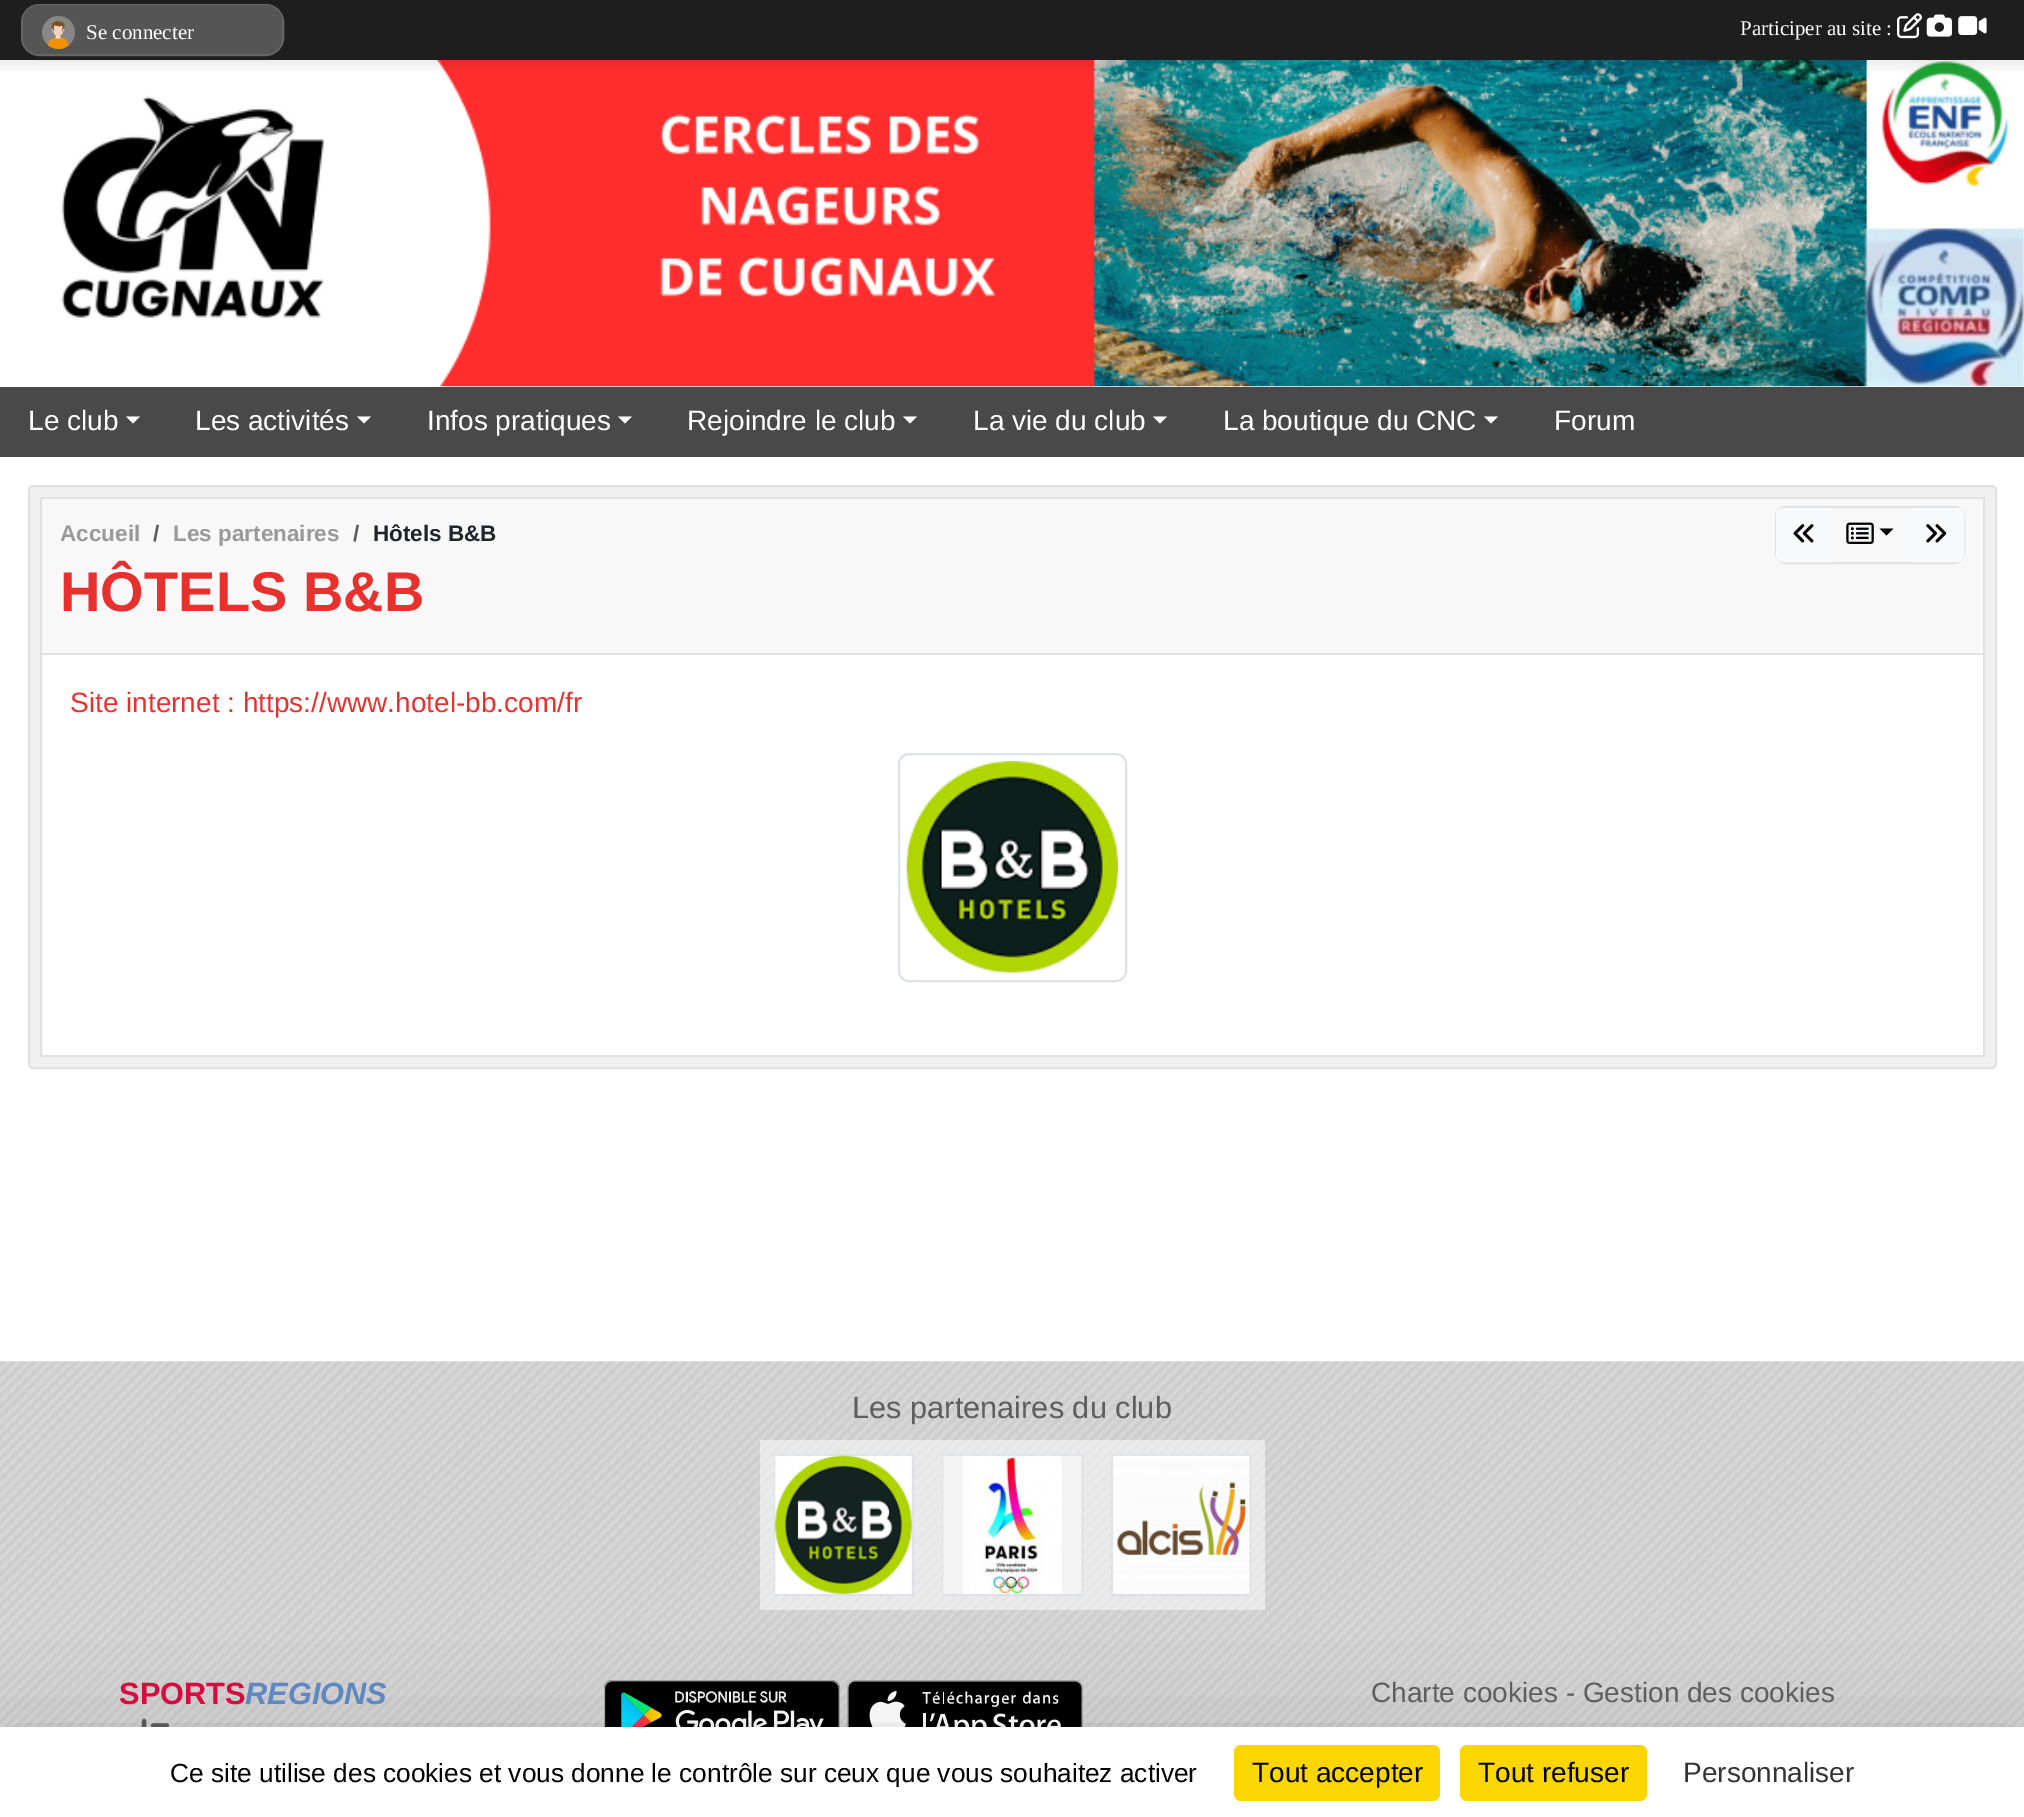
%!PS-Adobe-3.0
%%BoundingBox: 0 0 2024 1817
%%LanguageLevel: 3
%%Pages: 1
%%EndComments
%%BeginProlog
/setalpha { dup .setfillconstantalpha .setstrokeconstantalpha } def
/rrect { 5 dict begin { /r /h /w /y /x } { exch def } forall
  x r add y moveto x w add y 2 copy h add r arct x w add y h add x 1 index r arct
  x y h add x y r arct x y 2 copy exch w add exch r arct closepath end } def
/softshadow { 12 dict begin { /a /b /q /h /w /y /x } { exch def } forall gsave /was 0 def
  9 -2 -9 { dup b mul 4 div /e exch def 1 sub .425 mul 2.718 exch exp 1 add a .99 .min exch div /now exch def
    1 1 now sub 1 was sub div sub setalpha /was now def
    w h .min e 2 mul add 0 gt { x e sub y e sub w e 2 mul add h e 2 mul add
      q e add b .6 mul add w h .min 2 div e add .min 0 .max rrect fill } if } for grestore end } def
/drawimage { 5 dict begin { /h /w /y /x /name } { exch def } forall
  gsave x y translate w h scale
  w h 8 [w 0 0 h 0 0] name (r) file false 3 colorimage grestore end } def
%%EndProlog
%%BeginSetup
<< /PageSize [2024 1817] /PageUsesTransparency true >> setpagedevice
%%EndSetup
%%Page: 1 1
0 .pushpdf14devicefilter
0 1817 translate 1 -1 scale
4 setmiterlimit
1 setgray
0 0 2024 1817 rectfill
0.118 setgray
0 0 2024 60 rectfill
0.4 setgray
2 setlinewidth
22 5 261 50 17 rrect stroke
0.333 setgray
23 5 259 49 16 rrect fill
(images/1.raw) 42 16 33 33 drawimage
(images/2.raw) 1897 13 25 26 drawimage
(images/3.raw) 1926 14 26 23 drawimage
(images/4.raw) 1958 16 29 19 drawimage
(images/5.raw) 0 60 2024 327 drawimage
(images/6.raw) 0 60 2024 11 drawimage
0.286 setgray
0 387 2024 70 rectfill
1 setgray
newpath 126 416.5 moveto 140 416.5 lineto 133 423.5 lineto closepath fill
newpath 357 416.5 moveto 371 416.5 lineto 364 423.5 lineto closepath fill
newpath 618 416.5 moveto 632 416.5 lineto 625 423.5 lineto closepath fill
newpath 903 416.5 moveto 917 416.5 lineto 910 423.5 lineto closepath fill
newpath 1153 416.5 moveto 1167 416.5 lineto 1160 423.5 lineto closepath fill
newpath 1484 416.5 moveto 1498 416.5 lineto 1491 423.5 lineto closepath fill
0.941 setgray
29 486 1967 582 4 rrect gsave fill grestore
0.882 setgray
stroke
1 setgray
42 655 1941 400 rectfill
0.882 setgray
41 498 1943 558 rectstroke
0.973 setgray
42 499 1941 154 rectfill
0.882 setgray
42 653 1941 2 rectfill
1776 507 188 56 10 rrect stroke
0.973 0.976 0.98 setrgbcolor
newpath 1783 509 moveto 1831 509 lineto 1831 561 lineto 1783 561 lineto 1779.5 561 1777 558.5 1777 555 curveto 1777 515 lineto 1777 511.5 1779.5 509 1783 509 curveto closepath gsave fill grestore
stroke
(images/7.raw) 1793 524 21 19 drawimage
(images/8.raw) 1846 522 28 22 drawimage
0 setgray
newpath 1879.5 528.5 moveto 1893.5 528.5 lineto 1886.5 535.5 lineto closepath fill
0.973 0.976 0.98 setrgbcolor
newpath 1909 509 moveto 1957 509 lineto 1960.5 509 1963 511.5 1963 515 curveto 1963 555 lineto 1963 558.5 1960.5 561 1957 561 curveto 1909 561 lineto closepath gsave fill grestore
stroke
(images/9.raw) 1926 524 21 19 drawimage
0.871 0.886 0.902 setrgbcolor
899 754 227 227 10 rrect stroke
(images/10.raw) 906 761 213 212 drawimage
(images/11.raw) 0 1361 2024 366 drawimage
0.5 setalpha
1 setgray
760 1440 168 170 rectfill
1 setalpha
0.871 0.886 0.902 setrgbcolor
775 1455 138 140 rectstroke
(images/12.raw) 775 1455 137 139 drawimage
0.5 setalpha
1 setgray
928 1440 169 170 rectfill
1 setalpha
0.871 0.886 0.902 setrgbcolor
943 1455 139 140 rectstroke
(images/13.raw) 943 1455 139 139 drawimage
0.5 setalpha
1 setgray
1097 1440 168 170 rectfill
1 setalpha
0.871 0.886 0.902 setrgbcolor
1112 1455 138 140 rectstroke
(images/14.raw) 1113 1455 137 139 drawimage
(images/15.raw) 141 1718 28 9 drawimage
(images/16.raw) 604 1680 236 47 drawimage
(images/17.raw) 847 1680 236 47 drawimage
0 setgray
0 1762 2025 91 0 52.5 0.25 softshadow
1 setgray
0 1727 2024 90 rectfill
0.984 0.839 0 setrgbcolor
1234 1745 206 56 7 rrect fill
1460 1745 187 56 7 rrect fill
/LiberationSerif-Regular [21 0 0 -21 0 0] selectfont
1 setgray
86 39 moveto (Se connecter) show
1740 35 moveto (Participer au site :) show
/LiberationSans-Regular [28 0 0 -28 0 0] selectfont
28 430 moveto (Le club) show
195 430 moveto (Les activités) show
427 430 moveto (Infos pratiques) show
687 430 moveto (Rejoindre le club) show
973 430 moveto (La vie du club) show
1223 430 moveto (La boutique du CNC) show
1554 430 moveto (Forum) show
/LiberationSans-Bold [22.5 0 0 -22.5 0 0] selectfont
0.6 setgray
60 541 moveto (Accueil) show
0.341 0.353 0.365 setrgbcolor
153 541 moveto (/) show
0.6 setgray
173 541 moveto (Les partenaires) show
0.341 0.353 0.365 setrgbcolor
353 541 moveto (/) show
0.129 0.145 0.161 setrgbcolor
373 541 moveto (Hôtels B&B) show
/LiberationSans-Bold [56 0 0 -56 0 0] selectfont
0.902 0.192 0.18 setrgbcolor
60 611 moveto (HÔTELS B&B) show
/LiberationSans-Regular [28 0 0 -28 0 0] selectfont
70 712 moveto (Site internet : https://www.hotel-bb.com/fr) show
/LiberationSans-Regular [30.75 0 0 -30.75 0 0] selectfont
0.369 setgray
852 1418 moveto (Les partenaires du club) show
/LiberationSans-Bold [30.75 0 0 -30.75 0 0] selectfont
0.839 0.047 0.243 setrgbcolor
119 1704 moveto (SPORTS) show
/LiberationSans-BoldItalic [30.75 0 0 -30.75 0 0] selectfont
0.373 0.533 0.753 setrgbcolor
245 1704 moveto (REGIONS) show
/LiberationSans-Regular [28 0 0 -28 0 0] selectfont
0.369 setgray
1371 1702 moveto (Charte cookies - Gestion des cookies) show
gsave
152 1757 1063 30 rectclip
/LiberationSans-Regular [26.25 0 0 -26.25 0 0] selectfont
0 setgray
170 1782 moveto (Ce site utilise des cookies et vous donne le contrôle sur ceux que vous souhaitez activer) show
grestore
0 setgray
1252 1782 moveto (Tout accepter) show
1478 1782 moveto (Tout refuser) show
0.2 setgray
1683 1782 moveto (Personnaliser) show
.poppdf14devicefilter showpage
%%EOF
